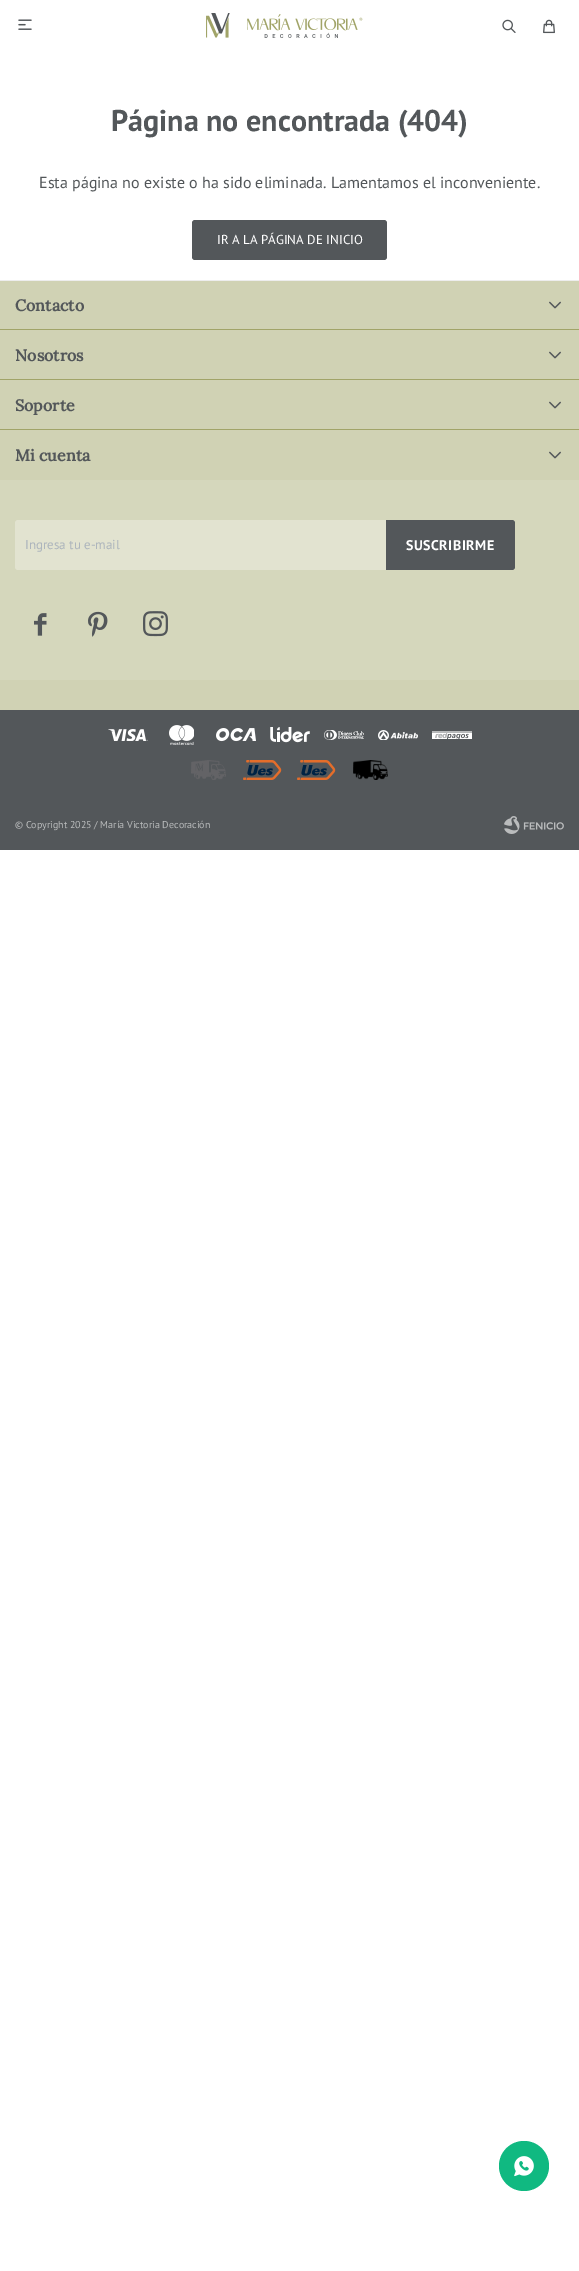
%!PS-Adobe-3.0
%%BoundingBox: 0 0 579 2271
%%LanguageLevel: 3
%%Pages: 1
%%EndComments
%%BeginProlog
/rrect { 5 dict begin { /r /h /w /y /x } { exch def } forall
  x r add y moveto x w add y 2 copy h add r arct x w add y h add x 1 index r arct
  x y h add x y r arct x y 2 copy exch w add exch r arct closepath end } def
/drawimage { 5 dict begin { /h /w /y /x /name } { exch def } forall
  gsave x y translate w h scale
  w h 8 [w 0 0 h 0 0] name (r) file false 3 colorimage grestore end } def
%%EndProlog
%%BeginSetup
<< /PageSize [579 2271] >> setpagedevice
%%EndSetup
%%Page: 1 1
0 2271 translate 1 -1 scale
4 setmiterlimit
1 setgray
0 0 579 2271 rectfill
(images/1.raw) 18 19 14 11 drawimage
(images/2.raw) 206 13 157 25 drawimage
(images/3.raw) 502 19 14 14 drawimage
(images/4.raw) 543 19 12 15 drawimage
0.325 0.341 0.353 setrgbcolor
192 220 195 40 3 rrect fill
0.816 0.824 0.706 setrgbcolor
0 281 579 429 rectfill
0.929 setgray
0 280 579 1 rectfill
(images/5.raw) 549 301 12 8 drawimage
0.631 0.643 0.408 setrgbcolor
0 329 579 1 rectfill
(images/5.raw) 549 351 12 8 drawimage
0 379 579 1 rectfill
(images/5.raw) 549 401 12 8 drawimage
0 429 579 1 rectfill
(images/5.raw) 549 451 12 8 drawimage
0.835 0.843 0.737 setrgbcolor
0 480 579 200 rectfill
0.886 0.89 0.816 setrgbcolor
15 520 500 50 3 rrect fill
0.325 0.341 0.353 setrgbcolor
newpath 386 520 moveto 512 520 lineto 513.5 520 515 521.5 515 523 curveto 515 567 lineto 515 568.5 513.5 570 512 570 curveto 386 570 lineto closepath fill
(images/6.raw) 34 613 13 23 drawimage
(images/7.raw) 88 611 20 26 drawimage
(images/8.raw) 143 611 25 26 drawimage
0 710 579 140 rectfill
(images/9.raw) 108 729 40 12 drawimage
(images/10.raw) 169 725 25 20 drawimage
(images/11.raw) 216 728 40 14 drawimage
(images/12.raw) 270 727 40 16 drawimage
(images/13.raw) 324 730 40 10 drawimage
(images/14.raw) 378 730 40 10 drawimage
(images/15.raw) 432 731 40 8 drawimage
(images/16.raw) 191 760 35 20 drawimage
(images/17.raw) 243 760 39 20 drawimage
(images/17.raw) 297 760 39 20 drawimage
(images/18.raw) 353 760 35 20 drawimage
(images/19.raw) 504 816 60 18 drawimage
0.063 0.725 0.506 setrgbcolor
newpath 524 2166 25 0 360 arc closepath fill
(images/20.raw) 514 2156 20 21 drawimage
/PTSans-Bold [30 0 0 -30 0 0] selectfont
0.325 0.341 0.353 setrgbcolor
111 131 moveto (Página no encontrada \(404\)) show
/PTSans-Regular [16 0 0 -16 0 0] selectfont
39 188 moveto (Esta página no existe o ha sido eliminada. Lamentamos el inconveniente.) show
/PTSans-Regular [13 0 0 -13 0 0] selectfont
1 setgray
217 244 moveto (IR A LA PÁGINA DE INICIO) show
/Lora-Bold [16 0 0 -16 0 0] selectfont
0.325 0.341 0.353 setrgbcolor
15 311 moveto (Contacto) show
15 361 moveto (Nosotros) show
15 411 moveto (Soporte) show
15 461 moveto (Mi cuenta) show
/PTSans-Regular [13 0 0 -13 0 0] selectfont
0.678 0.71 0.741 setrgbcolor
25 549 moveto (Ingresa tu e-mail) show
/PTSans-Bold [14 0 0 -14 0 0] selectfont
1 setgray
406 550 moveto 0.5 0 (SUSCRIBIRME) ashow
/PTSans-Regular [10 0 0 -10 0 0] selectfont
0.729 0.737 0.741 setrgbcolor
15 828 moveto (© Copyright 2025 / María Victoria Decoración) show
showpage
%%EOF
